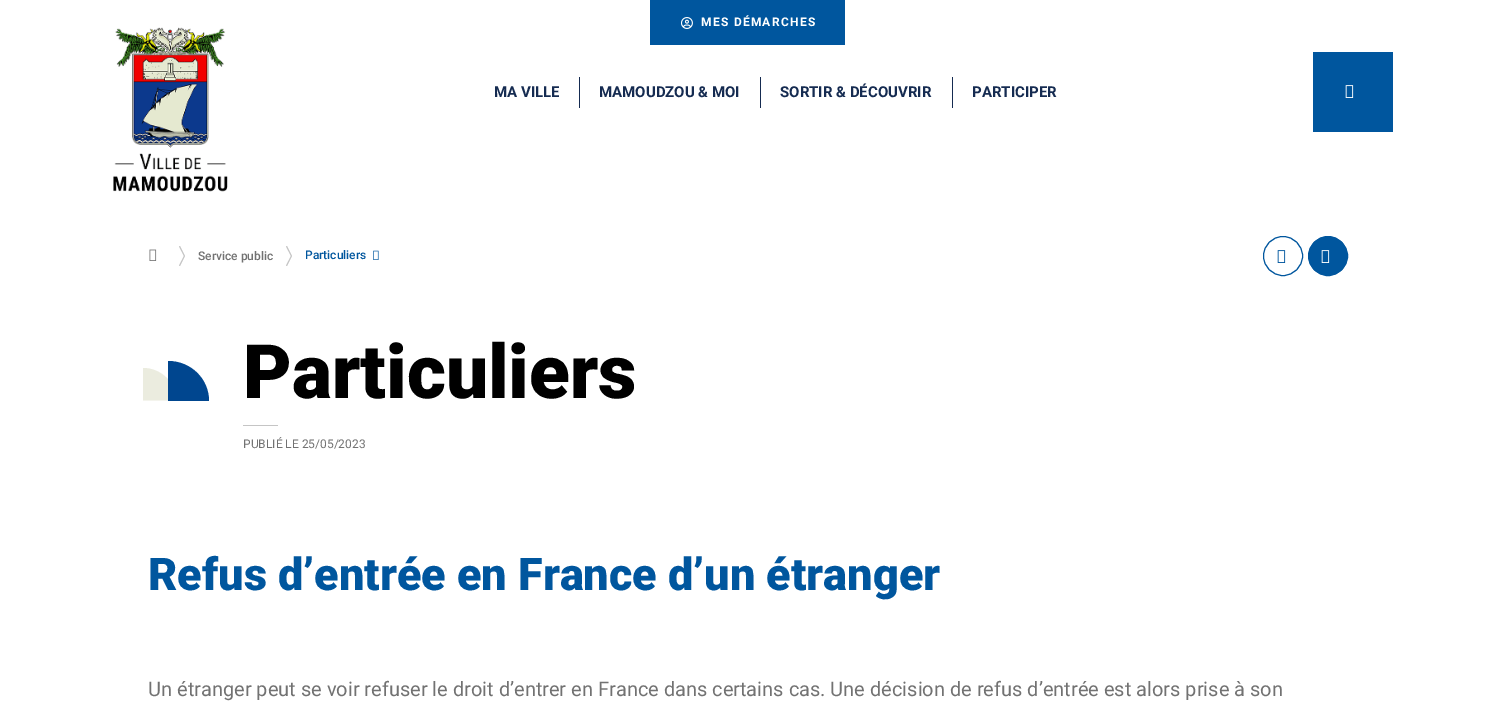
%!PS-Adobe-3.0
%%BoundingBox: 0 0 1496 709
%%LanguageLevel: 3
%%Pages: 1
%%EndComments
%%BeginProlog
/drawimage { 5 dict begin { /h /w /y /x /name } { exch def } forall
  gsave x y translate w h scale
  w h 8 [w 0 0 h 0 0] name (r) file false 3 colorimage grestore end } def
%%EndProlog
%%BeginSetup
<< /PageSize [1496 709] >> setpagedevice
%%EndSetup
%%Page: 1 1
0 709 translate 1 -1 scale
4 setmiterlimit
1 setgray
0 0 1496 709 rectfill
0 0.337 0.62 setrgbcolor
650 0 195 45 rectfill
(images/1.raw) 681 17 12 12 drawimage
(images/2.raw) 113 27 115 165 drawimage
0.082 0.169 0.318 setrgbcolor
579 77 1 31 rectfill
760 77 1 31 rectfill
952 77 1 31 rectfill
0 0.337 0.62 setrgbcolor
1313 52 80 80 rectfill
(images/3.raw) 1345 85 9 13 drawimage
(images/4.raw) 149 249 8 12 drawimage
0.773 setgray
newpath 180 266 moveto 179 265.5 lineto 184 256 lineto 179 246.5 lineto 180 246 lineto 185 256 lineto closepath fill
newpath 287 266 moveto 286 265.5 lineto 291 256 lineto 286 246.5 lineto 287 246 lineto 292 256 lineto closepath fill
(images/5.raw) 373 250 6 10 drawimage
0 0.337 0.62 setrgbcolor
newpath 1283 256 19.5 0 360 arc closepath stroke
(images/6.raw) 1277 250 9 13 drawimage
newpath 1328 256 19.5 0 360 arc closepath gsave fill grestore
stroke
(images/3.raw) 1321 250 9 13 drawimage
0.922 0.925 0.875 setrgbcolor
newpath 143 368 moveto 143 400.5 lineto 176.5 400.5 lineto 176 382.5 161 368 143 368 curveto fill
0 0.275 0.561 setrgbcolor
newpath 168 361 moveto 168 401 lineto 209 401 lineto 209 379 191 361 168 361 curveto fill
0.773 setgray
243 425 35 1 rectfill
/Roboto-Bold [12 0 0 -12 0 0] selectfont
1 setgray
701 26 moveto 1.25 0 (MES DÉMARCHES) ashow
/Roboto-Bold [15 0 0 -15 0 0] selectfont
0.082 0.169 0.318 setrgbcolor
494 97 moveto (MA VILLE) show
599 97 moveto (MAMOUDZOU & MOI) show
780 97 moveto (SORTIR & DÉCOUVRIR) show
972 97 moveto (PARTICIPER) show
/Roboto-Medium [12 0 0 -12 0 0] selectfont
0.447 setgray
198 260 moveto (Service public) show
0 0.337 0.62 setrgbcolor
305 259 moveto (Particuliers) show
/Roboto-Black [75 0 0 -75 0 0] selectfont
0 setgray
243 398 moveto (Particuliers) show
/Roboto-Regular [12 0 0 -12 0 0] selectfont
0.447 setgray
243 448 moveto (PUBLIÉ LE 25/05/2023) show
/Roboto-Black [45 0 0 -45 0 0] selectfont
0 0.337 0.62 setrgbcolor
148 590 moveto (Refus d’entrée en France d’un étranger) show
/Roboto-Regular [20 0 0 -20 0 0] selectfont
0.447 setgray
148 696 moveto (Un étranger peut se voir refuser le droit d’entrer en France dans certains cas. Une décision de refus d’entrée est alors prise à son) show
showpage
%%EOF
